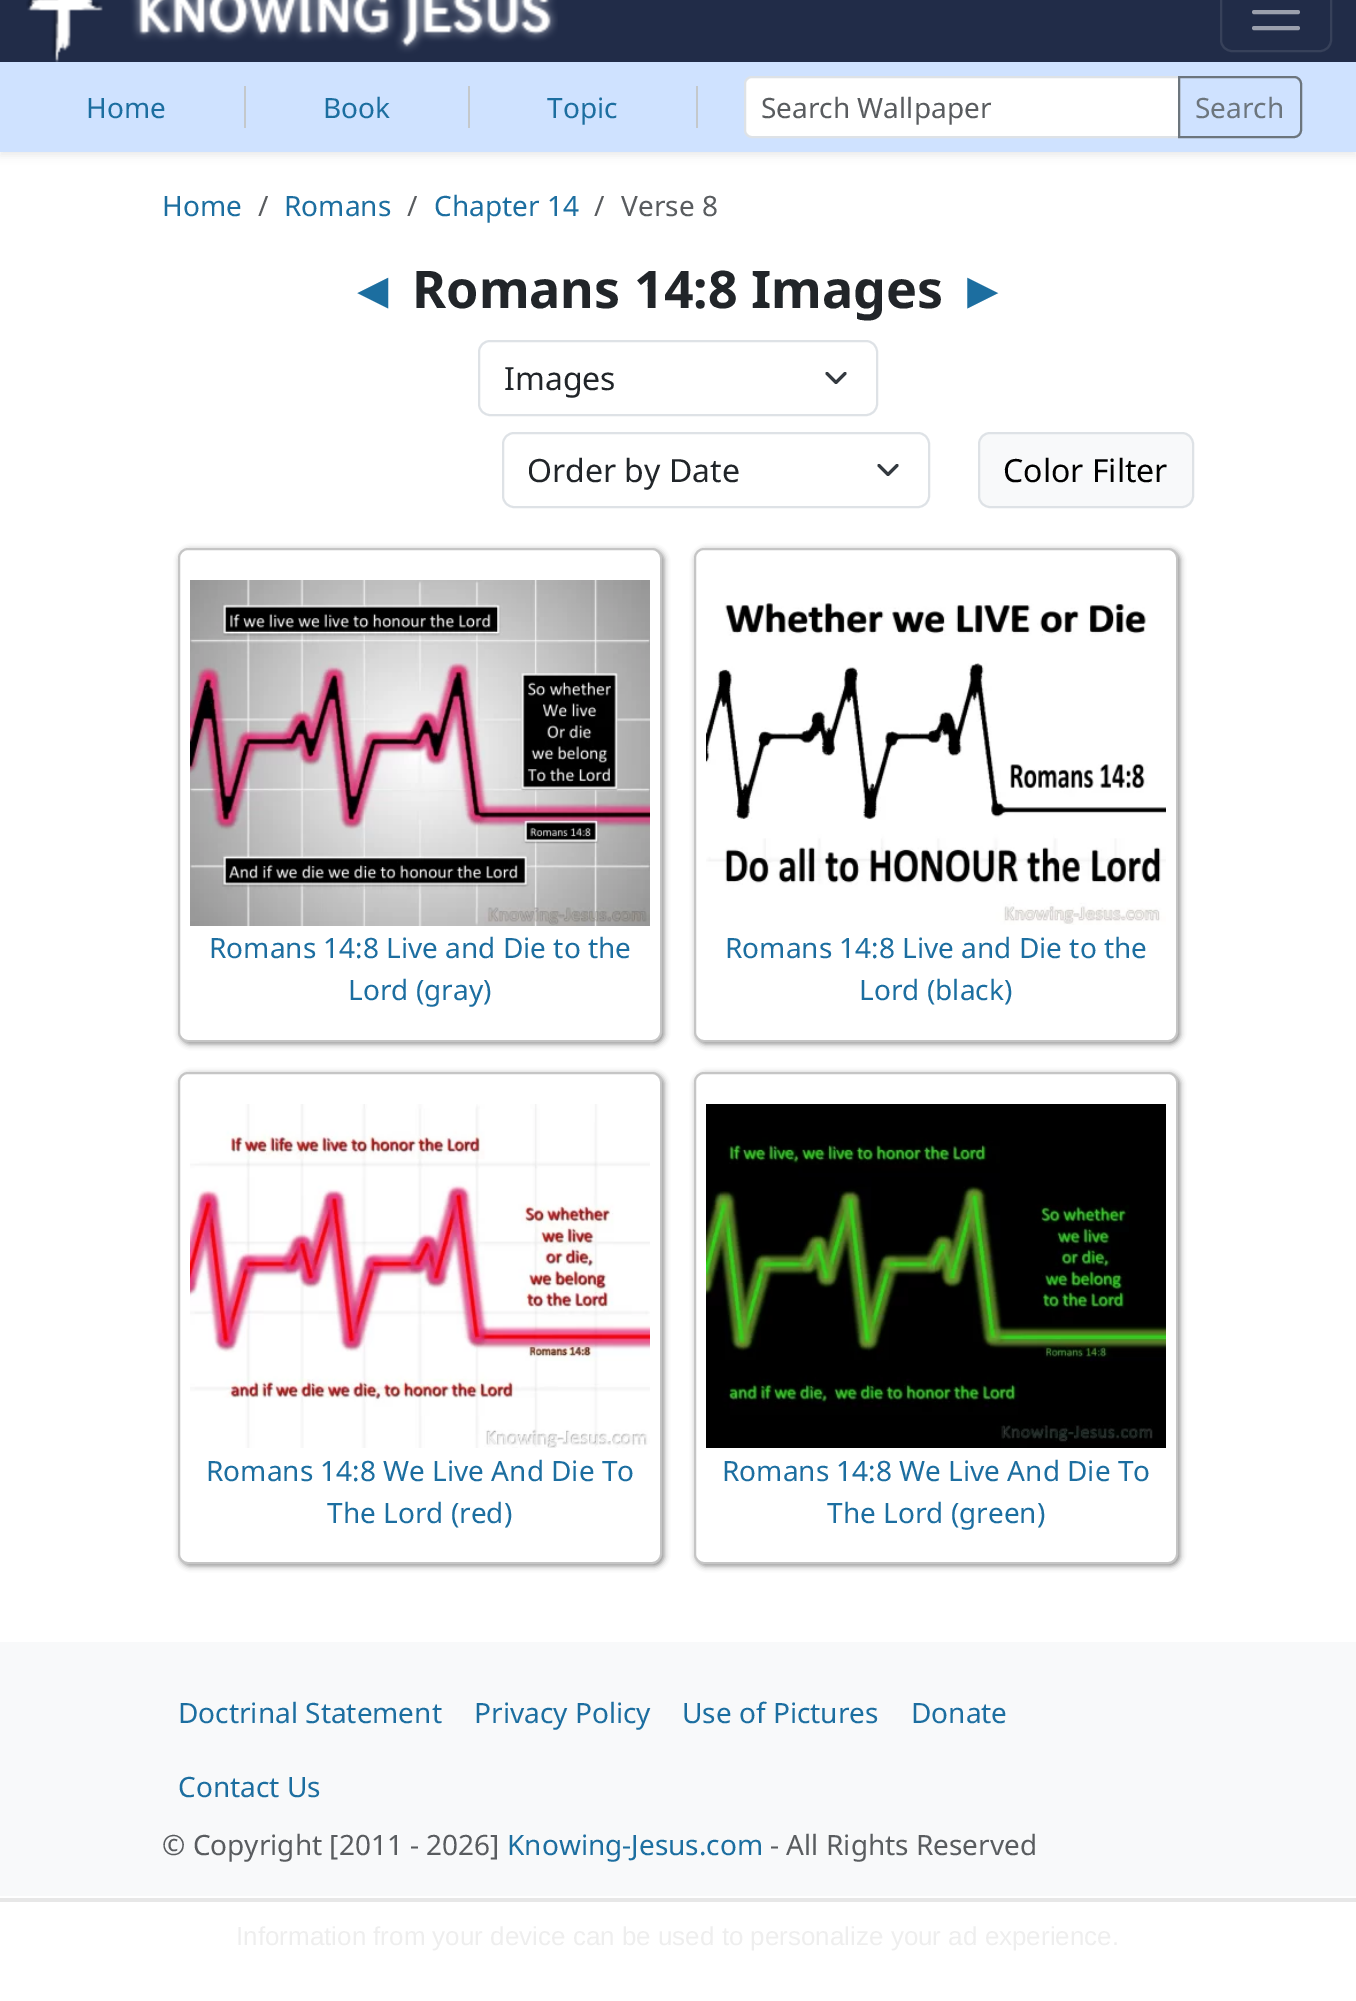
%!PS-Adobe-3.0
%%BoundingBox: 0 0 1356 2001
%%LanguageLevel: 3
%%Pages: 1
%%EndComments
%%BeginProlog
/setalpha { dup .setfillconstantalpha .setstrokeconstantalpha } def
/rrect { 5 dict begin { /r /h /w /y /x } { exch def } forall
  x r add y moveto x w add y 2 copy h add r arct x w add y h add x 1 index r arct
  x y h add x y r arct x y 2 copy exch w add exch r arct closepath end } def
/softshadow { 12 dict begin { /a /b /q /h /w /y /x } { exch def } forall gsave /was 0 def
  9 -2 -9 { dup b mul 4 div /e exch def 1 sub .425 mul 2.718 exch exp 1 add a .99 .min exch div /now exch def
    1 1 now sub 1 was sub div sub setalpha /was now def
    w h .min e 2 mul add 0 gt { x e sub y e sub w e 2 mul add h e 2 mul add
      q e add b .6 mul add w h .min 2 div e add .min 0 .max rrect fill } if } for grestore end } def
/drawimage { 5 dict begin { /h /w /y /x /name } { exch def } forall
  gsave x y translate w h scale
  w h 8 [w 0 0 h 0 0] name (r) file false 3 colorimage grestore end } def
%%EndProlog
%%BeginSetup
<< /PageSize [1356 2001] /PageUsesTransparency true >> setpagedevice
%%EndSetup
%%Page: 1 1
0 .pushpdf14devicefilter
0 2001 translate 1 -1 scale
4 setmiterlimit
1 setgray
0 0 1356 2001 rectfill
0 setgray
0 66 1356 90 0 4 0.07 softshadow
0.129 0.173 0.282 setrgbcolor
0 0 1356 62 rectfill
(images/1.raw) 26 0 532 62 drawimage
0.216 0.255 0.353 setrgbcolor
2 setlinewidth
1221 -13 110 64 11 rrect stroke
0.608 0.627 0.678 setrgbcolor
4 setlinewidth
1 setlinecap
newpath 1254 -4 moveto 1298 -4 lineto 1254 12 moveto 1298 12 lineto 1254 28 moveto 1298 28 lineto stroke
0.812 0.886 1 setrgbcolor
0 62 1356 90 rectfill
0.769 0.784 0.796 setrgbcolor
244 86 2 42 rectfill
468 86 2 42 rectfill
696 86 2 42 rectfill
1 setgray
newpath 752 77 moveto 1179 77 lineto 1179 137 lineto 752 137 lineto 748 137 745 134 745 130 curveto 745 84 lineto 745 80 748 77 752 77 curveto closepath gsave fill grestore
0.871 0.886 0.902 setrgbcolor
2 setlinewidth
0 setlinecap
stroke
0.424 0.459 0.49 setrgbcolor
newpath 1179 77 moveto 1294 77 lineto 1298 77 1301 80 1301 84 curveto 1301 130 lineto 1301 134 1298 137 1294 137 curveto 1179 137 lineto closepath stroke
0.204 0.227 0.251 setrgbcolor
3 setlinewidth
1 setlinecap
1 setlinejoin
newpath 827 373.5 moveto 836 382.5 lineto 845 373.5 lineto stroke
0.871 0.886 0.902 setrgbcolor
2 setlinewidth
0 setlinecap
0 setlinejoin
479 341 398 74 11 rrect stroke
0.204 0.227 0.251 setrgbcolor
3 setlinewidth
1 setlinecap
1 setlinejoin
newpath 879 465.5 moveto 888 474.5 lineto 897 465.5 lineto stroke
0.871 0.886 0.902 setrgbcolor
2 setlinewidth
0 setlinecap
0 setlinejoin
503 433 426 74 11 rrect stroke
0.973 0.976 0.98 setrgbcolor
979 433 214 74 11 rrect gsave fill grestore
0.871 0.886 0.902 setrgbcolor
stroke
gsave
newpath 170 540 moveto 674 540 lineto 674 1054 lineto 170 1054 lineto closepath 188 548 moveto 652 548 lineto 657.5 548 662 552.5 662 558 curveto 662 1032 lineto 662 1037.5 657.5 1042 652 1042 curveto 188 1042 lineto 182.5 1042 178 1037.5 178 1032 curveto 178 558 lineto 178 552.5 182.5 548 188 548 curveto closepath eoclip newpath
0.533 setgray
180 550 484 494 10 3 1 softshadow
grestore
0.773 setgray
179 549 482 492 9 rrect stroke
(images/2.raw) 190 580 460 346 drawimage
gsave
newpath 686 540 moveto 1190 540 lineto 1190 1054 lineto 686 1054 lineto closepath 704 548 moveto 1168 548 lineto 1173.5 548 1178 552.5 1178 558 curveto 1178 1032 lineto 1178 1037.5 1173.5 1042 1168 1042 curveto 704 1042 lineto 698.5 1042 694 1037.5 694 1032 curveto 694 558 lineto 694 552.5 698.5 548 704 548 curveto closepath eoclip newpath
0.533 setgray
696 550 484 494 10 3 1 softshadow
grestore
695 549 482 492 9 rrect stroke
(images/3.raw) 706 603 460 322 drawimage
gsave
newpath 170 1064 moveto 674 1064 lineto 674 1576 lineto 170 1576 lineto closepath 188 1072 moveto 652 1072 lineto 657.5 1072 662 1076.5 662 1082 curveto 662 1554 lineto 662 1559.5 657.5 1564 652 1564 curveto 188 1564 lineto 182.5 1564 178 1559.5 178 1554 curveto 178 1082 lineto 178 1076.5 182.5 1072 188 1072 curveto closepath eoclip newpath
0.533 setgray
180 1074 484 492 10 3 1 softshadow
grestore
179 1073 482 490 9 rrect stroke
(images/4.raw) 190 1104 460 344 drawimage
gsave
newpath 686 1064 moveto 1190 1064 lineto 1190 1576 lineto 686 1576 lineto closepath 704 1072 moveto 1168 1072 lineto 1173.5 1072 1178 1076.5 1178 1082 curveto 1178 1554 lineto 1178 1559.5 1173.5 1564 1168 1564 curveto 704 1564 lineto 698.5 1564 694 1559.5 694 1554 curveto 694 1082 lineto 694 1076.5 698.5 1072 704 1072 curveto closepath eoclip newpath
0.533 setgray
696 1074 484 492 10 3 1 softshadow
grestore
695 1073 482 490 9 rrect stroke
(images/5.raw) 706 1104 460 344 drawimage
0.973 0.976 0.98 setrgbcolor
0 1642 1356 254 rectfill
0.906 setgray
0 1898 1356 4 rectfill
/NotoSans-Regular [28 0 0 -28 0 0] selectfont
0.11 0.431 0.627 setrgbcolor
86 118 moveto (Home) show
323 118 moveto (Book) show
547 118 moveto (Topic) show
0.349 0.361 0.373 setrgbcolor
761 118 moveto (Search Wallpaper) show
0.424 0.459 0.49 setrgbcolor
1195 118 moveto (Search) show
0.11 0.431 0.627 setrgbcolor
162 216 moveto (Home) show
0.349 0.361 0.373 setrgbcolor
258 216 moveto (/) show
0.11 0.431 0.627 setrgbcolor
284 216 moveto (Romans) show
0.349 0.361 0.373 setrgbcolor
407 216 moveto (/) show
0.11 0.431 0.627 setrgbcolor
434 216 moveto (Chapter 14) show
0.349 0.361 0.373 setrgbcolor
594 216 moveto (/) show
621 216 moveto (Verse 8) show
/LiberationSans-Bold [52 0 0 -52 0 0] selectfont
0.11 0.431 0.627 setrgbcolor
347 308 moveto (◄) show
/NotoSans-Bold [52 0 0 -52 0 0] selectfont
0.129 0.145 0.161 setrgbcolor
412 308 moveto (Romans 14:8 Images) show
/LiberationSans-Bold [52 0 0 -52 0 0] selectfont
0.11 0.431 0.627 setrgbcolor
957 308 moveto (►) show
/NotoSans-Regular [32 0 0 -32 0 0] selectfont
0.129 0.145 0.161 setrgbcolor
504 390 moveto (Images) show
527 482 moveto (Order by Date) show
0 setgray
1003 482 moveto (Color Filter) show
/NotoSans-Regular [28 0 0 -28 0 0] selectfont
0.11 0.431 0.627 setrgbcolor
209 958 moveto (Romans 14:8 Live and Die to the) show
348 1000 moveto (Lord \(gray\)) show
725 958 moveto (Romans 14:8 Live and Die to the) show
859 1000 moveto (Lord \(black\)) show
206 1481 moveto (Romans 14:8 We Live And Die To) show
327 1523 moveto (The Lord \(red\)) show
722 1481 moveto (Romans 14:8 We Live And Die To) show
827 1523 moveto (The Lord \(green\)) show
178 1723 moveto (Doctrinal Statement) show
474 1723 moveto (Privacy Policy) show
682 1723 moveto (Use of Pictures) show
911 1723 moveto (Donate) show
178 1797 moveto (Contact Us) show
0.349 0.361 0.373 setrgbcolor
162 1855 moveto (© Copyright [2011 - 2026]) show
0.11 0.431 0.627 setrgbcolor
507 1855 moveto (Knowing-Jesus.com) show
0.349 0.361 0.373 setrgbcolor
770 1855 moveto (- All Rights Reserved) show
/LiberationSans-Regular [26 0 0 -26 0 0] selectfont
0.933 setgray
236 1945 moveto (Information from your device can be used to personalize your ad experience.) show
.poppdf14devicefilter showpage
%%EOF
